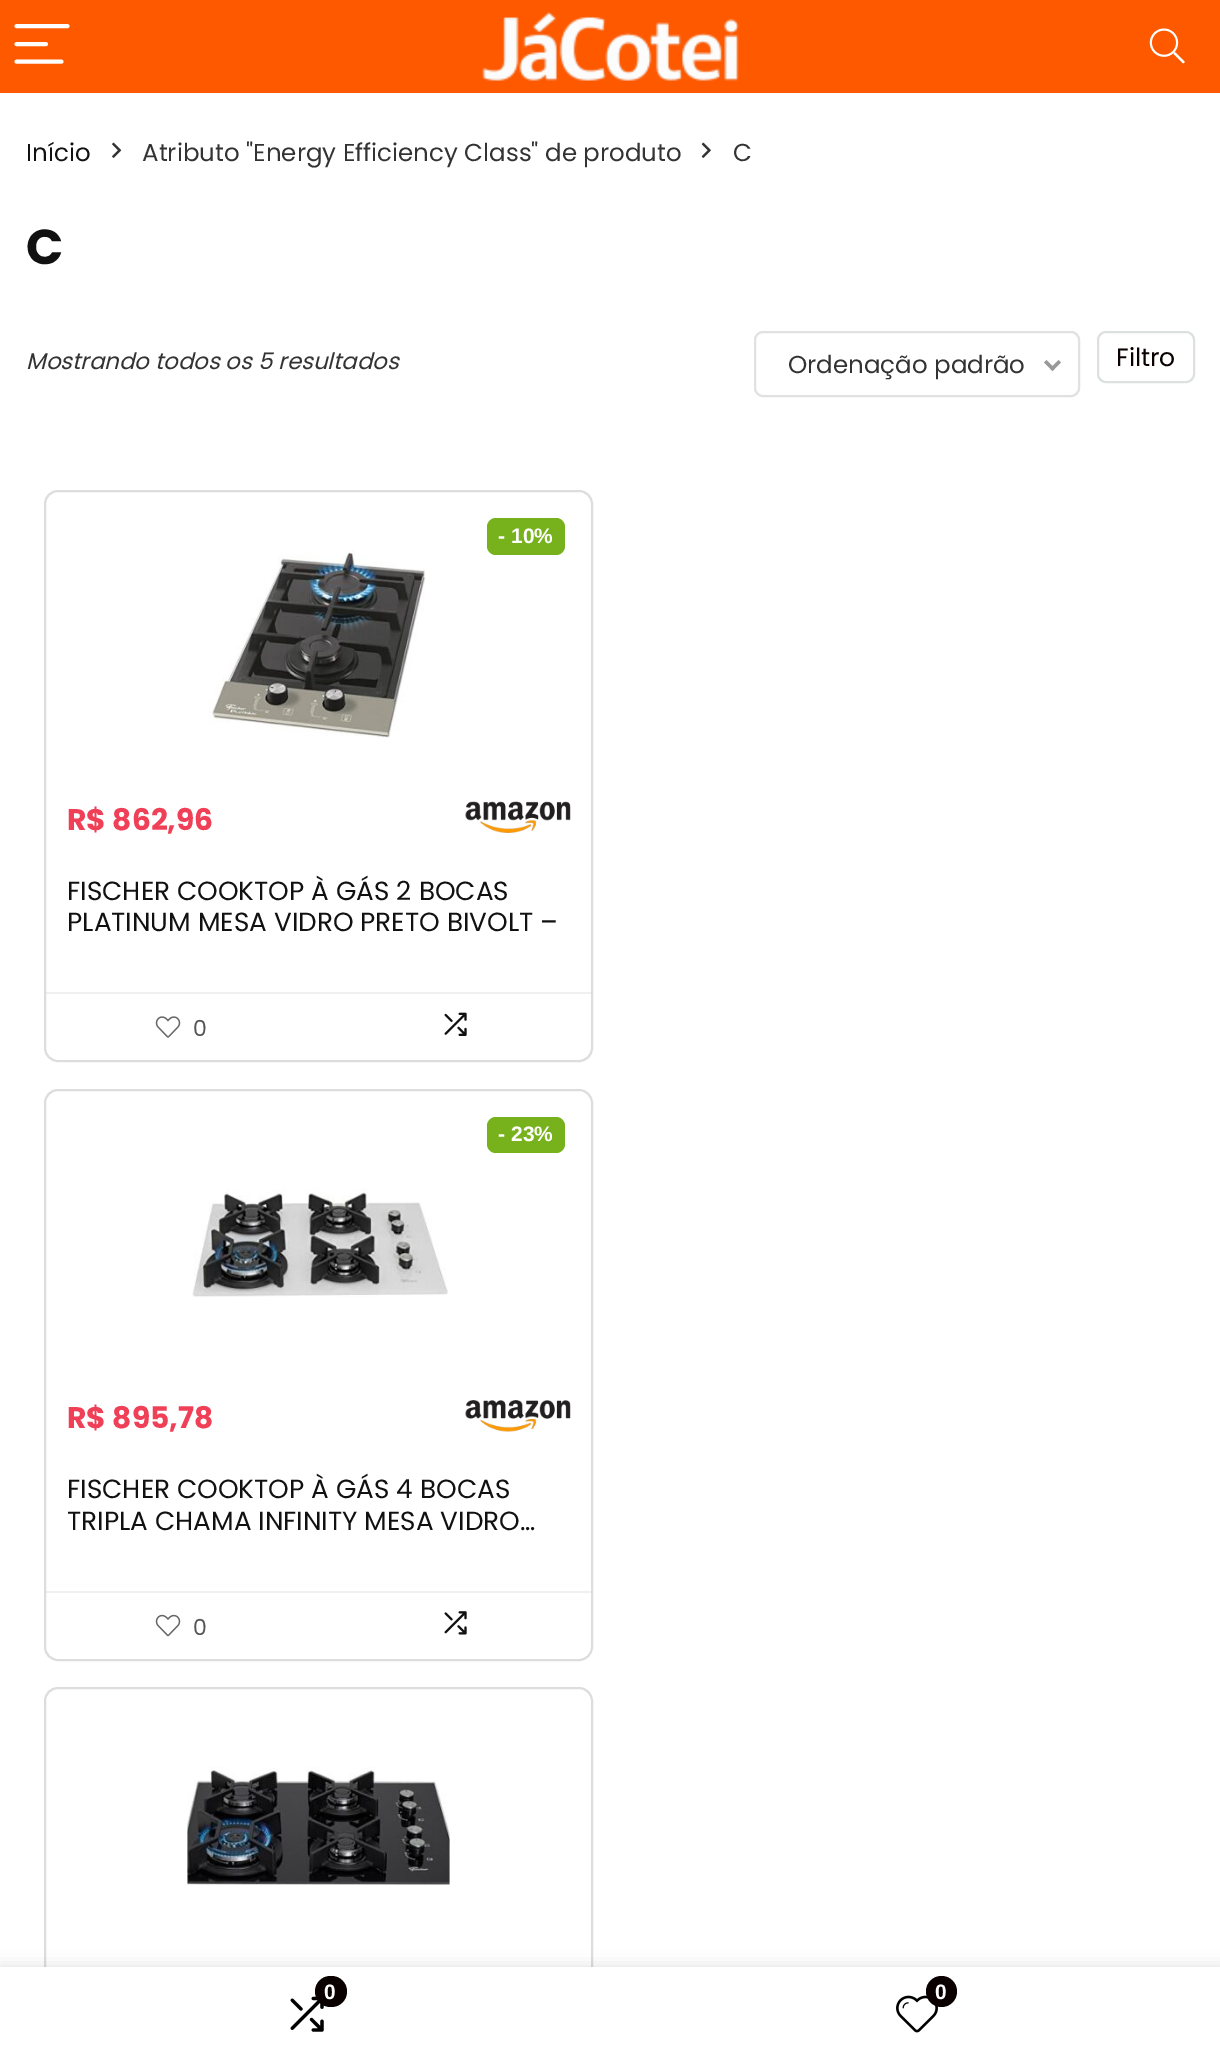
%!PS-Adobe-3.0
%%BoundingBox: 0 0 1220 2062
%%LanguageLevel: 3
%%Pages: 1
%%EndComments
%%BeginProlog
/setalpha { dup .setfillconstantalpha .setstrokeconstantalpha } def
/rrect { 5 dict begin { /r /h /w /y /x } { exch def } forall
  x r add y moveto x w add y 2 copy h add r arct x w add y h add x 1 index r arct
  x y h add x y r arct x y 2 copy exch w add exch r arct closepath end } def
/softshadow { 12 dict begin { /a /b /q /h /w /y /x } { exch def } forall gsave /was 0 def
  9 -2 -9 { dup b mul 4 div /e exch def 1 sub .425 mul 2.718 exch exp 1 add a .99 .min exch div /now exch def
    1 1 now sub 1 was sub div sub setalpha /was now def
    w h .min e 2 mul add 0 gt { x e sub y e sub w e 2 mul add h e 2 mul add
      q e add b .6 mul add w h .min 2 div e add .min 0 .max rrect fill } if } for grestore end } def
/drawimage { 5 dict begin { /h /w /y /x /name } { exch def } forall
  gsave x y translate w h scale
  w h 8 [w 0 0 h 0 0] name (r) file false 3 colorimage grestore end } def
%%EndProlog
%%BeginSetup
<< /PageSize [1220 2062] /PageUsesTransparency true >> setpagedevice
%%EndSetup
%%Page: 1 1
0 .pushpdf14devicefilter
0 2062 translate 1 -1 scale
4 setmiterlimit
1 setgray
0 0 1220 2062 rectfill
(images/1.raw) 112 142 10 16 drawimage
(images/2.raw) 701 142 10 16 drawimage
0.882 setgray
2 setlinewidth
755 332 324 64 8 rrect stroke
0.6 setgray
newpath 1058.5 360 moveto 1061 362.5 lineto 1052.5 371 lineto 1050 368.5 lineto closepath fill
newpath 1046.5 360 moveto 1055 368.5 lineto 1052.5 371 lineto 1044 362.5 lineto closepath fill
0.863 0.878 0.878 setrgbcolor
1098 332 96 50 8 rrect stroke
0.867 setgray
45 491 547 570 13 rrect stroke
0.467 0.698 0.114 setrgbcolor
487 518 78 37 9 rrect fill
(images/3.raw) 209 550 217 188 drawimage
(images/4.raw) 465 801 106 32 drawimage
0.3 setalpha
0.808 setgray
46 992 546 2 rectfill
1 setalpha
(images/5.raw) 155 1016 26 22 drawimage
(images/6.raw) 444 1012 23 24 drawimage
0.867 setgray
45 1090 547 570 13 rrect stroke
0.467 0.698 0.114 setrgbcolor
487 1117 78 36 9 rrect fill
(images/7.raw) 192 1189 256 108 drawimage
(images/8.raw) 465 1400 106 32 drawimage
0.3 setalpha
0.808 setgray
46 1591 546 2 rectfill
1 setalpha
(images/9.raw) 155 1614 26 23 drawimage
(images/10.raw) 444 1611 23 24 drawimage
0.867 setgray
45 1688 547 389 13 rrect stroke
(images/11.raw) 187 1767 263 118 drawimage
1 0.349 0 setrgbcolor
0 0 1220 93 rectfill
1 setgray
3.9 setlinewidth
1 setlinecap
newpath 16.5 26 moveto 67.5 26 lineto 16.5 44 moveto 46 44 lineto 16.5 61.5 moveto 61.5 61.5 lineto stroke
(images/12.raw) 482 12 257 69 drawimage
(images/13.raw) 1149 28 36 36 drawimage
0 setgray
0 1967 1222 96 0 8 0.12 softshadow
1 setgray
0 1967 1220 95 rectfill
(images/14.raw) 290 1996 34 36 drawimage
0.039 0 0 setrgbcolor
315 1976 32 31 15.5 rrect fill
(images/15.raw) 896 1995 42 38 drawimage
newpath 941.5 1991.5 15.5 0 360 arc closepath fill
/Poppins-Regular [24.5 0 0 -24.5 0 0] selectfont
0.067 setgray
26 161 moveto (Início) show
0.2 setgray
142 161 moveto (Atributo "Energy Efficiency Class" de produto) show
733 161 moveto (C) show
/Poppins-Bold [49 0 0 -49 0 0] selectfont
0.067 setgray
26 264 moveto (C) show
/Poppins-Italic [22.75 0 0 -22.75 0 0] selectfont
0.2 setgray
26 369 moveto (Mostrando todos os 5 resultados) show
/Poppins-Regular [24.5 0 0 -24.5 0 0] selectfont
788 373 moveto (Ordenação padrão) show
/Poppins-Regular [25 0 0 -25 0 0] selectfont
0.039 0 0 setrgbcolor
1116 366 moveto (Filtro) show
/LiberationSans-Bold [21 0 0 -21 0 0] selectfont
1 setgray
498 543 moveto (- 10%) show
/Poppins-Bold [29.75 0 0 -29.75 0 0] selectfont
0.941 0.251 0.341 setrgbcolor
67 830 moveto (R$ 862,96) show
/Poppins-Regular [26.25 0 0 -26.25 0 0] selectfont
0.067 setgray
67 900 moveto (FISCHER COOKTOP À GÁS 2 BOCAS) show
67 931 moveto (PLATINUM MESA VIDRO PRETO BIVOLT –) show
/Poppins-Regular [22 0 0 -22 0 0] selectfont
0.333 setgray
193 1036 moveto (0) show
/LiberationSans-Bold [21 0 0 -21 0 0] selectfont
1 setgray
498 1141 moveto (- 23%) show
/Poppins-Bold [29.75 0 0 -29.75 0 0] selectfont
0.941 0.251 0.341 setrgbcolor
67 1428 moveto (R$ 895,78) show
/Poppins-Regular [26.25 0 0 -26.25 0 0] selectfont
0.067 setgray
67 1498 moveto (FISCHER COOKTOP À GÁS 4 BOCAS) show
67 1530 moveto (TRIPLA CHAMA INFINITY MESA VIDRO…) show
/Poppins-Regular [22 0 0 -22 0 0] selectfont
0.333 setgray
193 1635 moveto (0) show
/LiberationSans-Bold [21 0 0 -21 0 0] selectfont
1 setgray
324 1999 moveto (0) show
935 1999 moveto (0) show
.poppdf14devicefilter showpage
%%EOF
